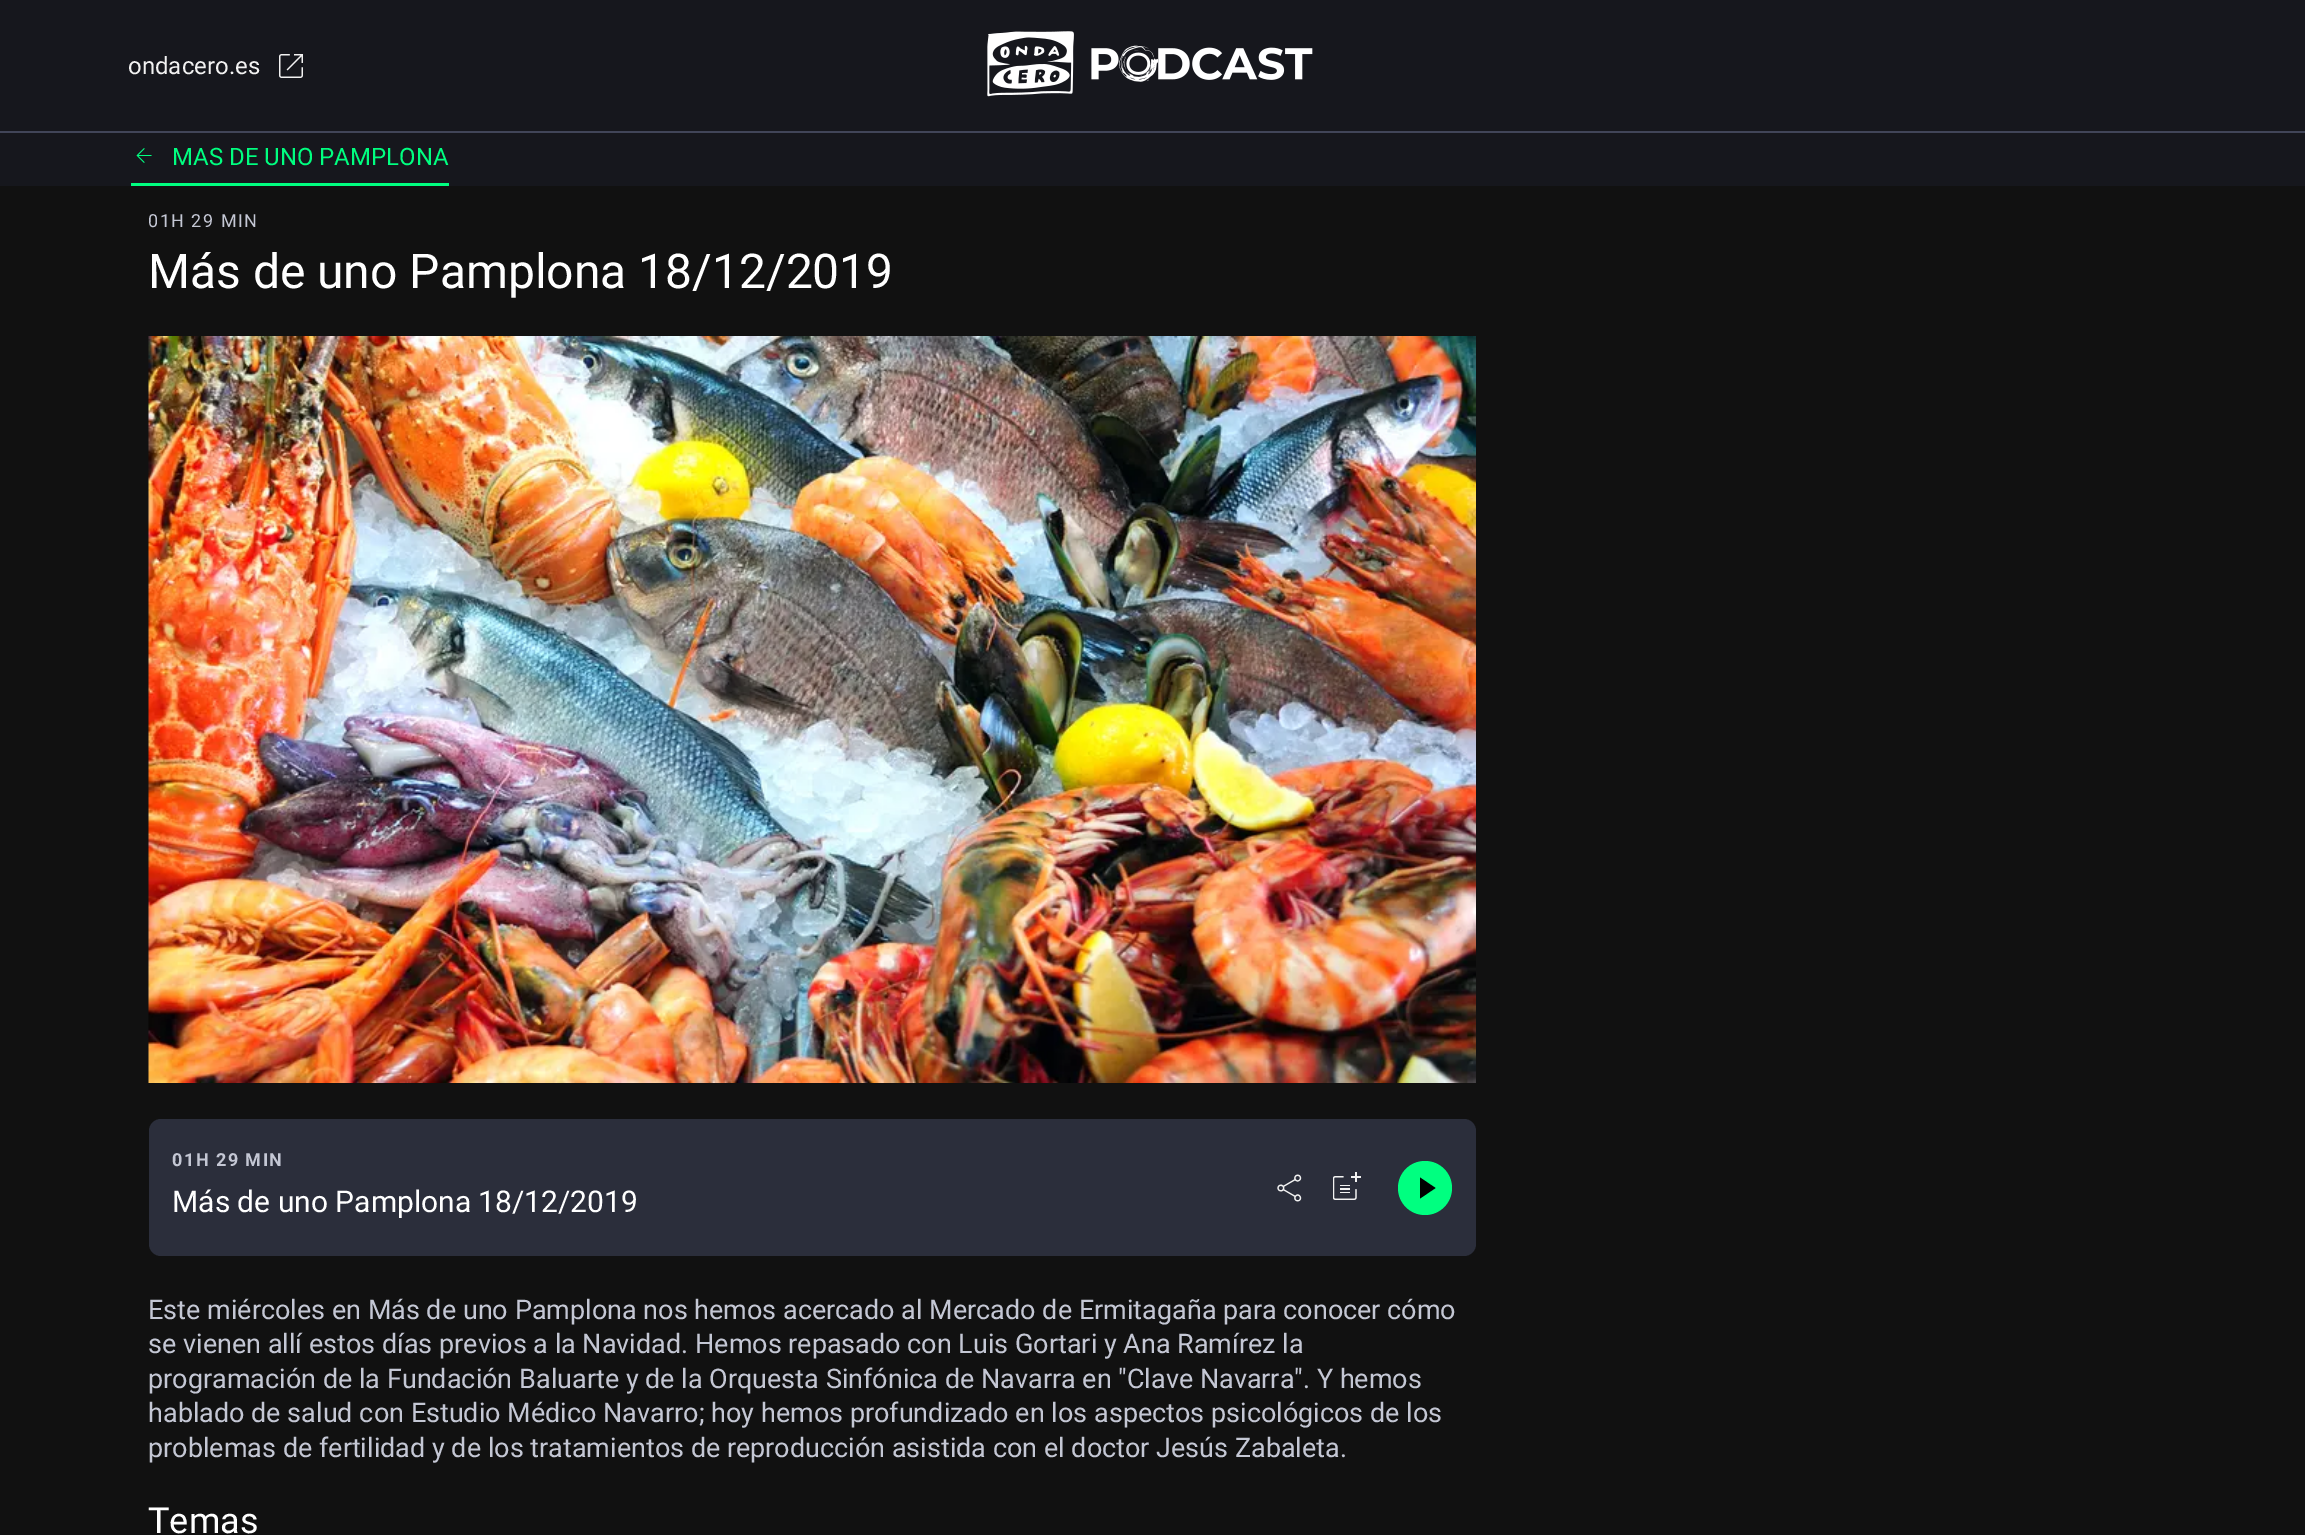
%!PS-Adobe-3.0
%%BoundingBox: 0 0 2305 1535
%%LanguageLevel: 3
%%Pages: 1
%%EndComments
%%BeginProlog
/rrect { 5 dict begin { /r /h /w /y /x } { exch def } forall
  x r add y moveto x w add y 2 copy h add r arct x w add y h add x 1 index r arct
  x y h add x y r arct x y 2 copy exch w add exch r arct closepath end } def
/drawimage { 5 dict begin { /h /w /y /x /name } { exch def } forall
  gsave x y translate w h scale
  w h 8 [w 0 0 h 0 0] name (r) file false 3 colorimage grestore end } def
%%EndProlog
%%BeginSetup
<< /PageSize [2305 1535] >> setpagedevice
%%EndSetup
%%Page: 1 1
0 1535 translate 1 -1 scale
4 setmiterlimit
0.067 setgray
0 0 2305 1535 rectfill
0.086 0.09 0.114 setrgbcolor
0 0 2305 131 rectfill
0.255 0.271 0.345 setrgbcolor
0 131 2305 2 rectfill
(images/1.raw) 279 54 24 24 drawimage
(images/2.raw) 987 31 326 66 drawimage
0.086 0.09 0.114 setrgbcolor
0 133 2305 53 rectfill
0 1 0.502 setrgbcolor
131 183 318 3 rectfill
(images/3.raw) 136 148 16 15 drawimage
(images/4.raw) 148 336 1328 747 drawimage
0.169 0.18 0.231 setrgbcolor
149 1119 1327 137 12 rrect fill
(images/5.raw) 1277 1174 25 28 drawimage
(images/6.raw) 1333 1172 28 28 drawimage
0 1 0.502 setrgbcolor
newpath 1425 1188 27 0 360 arc closepath fill
0 setgray
newpath 1420 1177.5 moveto 1420 1198.5 lineto 1435.5 1188 lineto closepath fill
/Roboto-Regular [24 0 0 -24 0 0] selectfont
0.949 setgray
128 74 moveto (ondacero.es) show
0 1 0.502 setrgbcolor
172 165 moveto (MAS DE UNO PAMPLONA) show
/Roboto-Regular [18 0 0 -18 0 0] selectfont
0.769 0.78 0.831 setrgbcolor
148 227 moveto 1.5 0 (01H 29 MIN) ashow
/Roboto-Regular [48 0 0 -48 0 0] selectfont
1 setgray
148 288 moveto (Más de uno Pamplona 18/12/2019) show
/Roboto-Bold [18 0 0 -18 0 0] selectfont
0.769 0.78 0.831 setrgbcolor
172 1166 moveto 1.5 0 (01H 29 MIN) ashow
/Roboto-Regular [30 0 0 -30 0 0] selectfont
1 setgray
172 1212 moveto (Más de uno Pamplona 18/12/2019) show
/Roboto-Regular [27 0 0 -27 0 0] selectfont
0.769 0.78 0.831 setrgbcolor
148 1319 moveto (Este miércoles en Más de uno Pamplona nos hemos acercado al Mercado de Ermitagaña para conocer cómo) show
148 1353 moveto (se vienen allí estos días previos a la Navidad. Hemos repasado con Luis Gortari y Ana Ramírez la) show
148 1388 moveto (programación de la Fundación Baluarte y de la Orquesta Sinfónica de Navarra en "Clave Navarra". Y hemos) show
148 1422 moveto (hablado de salud con Estudio Médico Navarro; hoy hemos profundizado en los aspectos psicológicos de los) show
148 1457 moveto (problemas de fertilidad y de los tratamientos de reproducción asistida con el doctor Jesús Zabaleta.) show
/Roboto-Regular [36 0 0 -36 0 0] selectfont
1 setgray
148 1533 moveto (Temas) show
showpage
%%EOF
